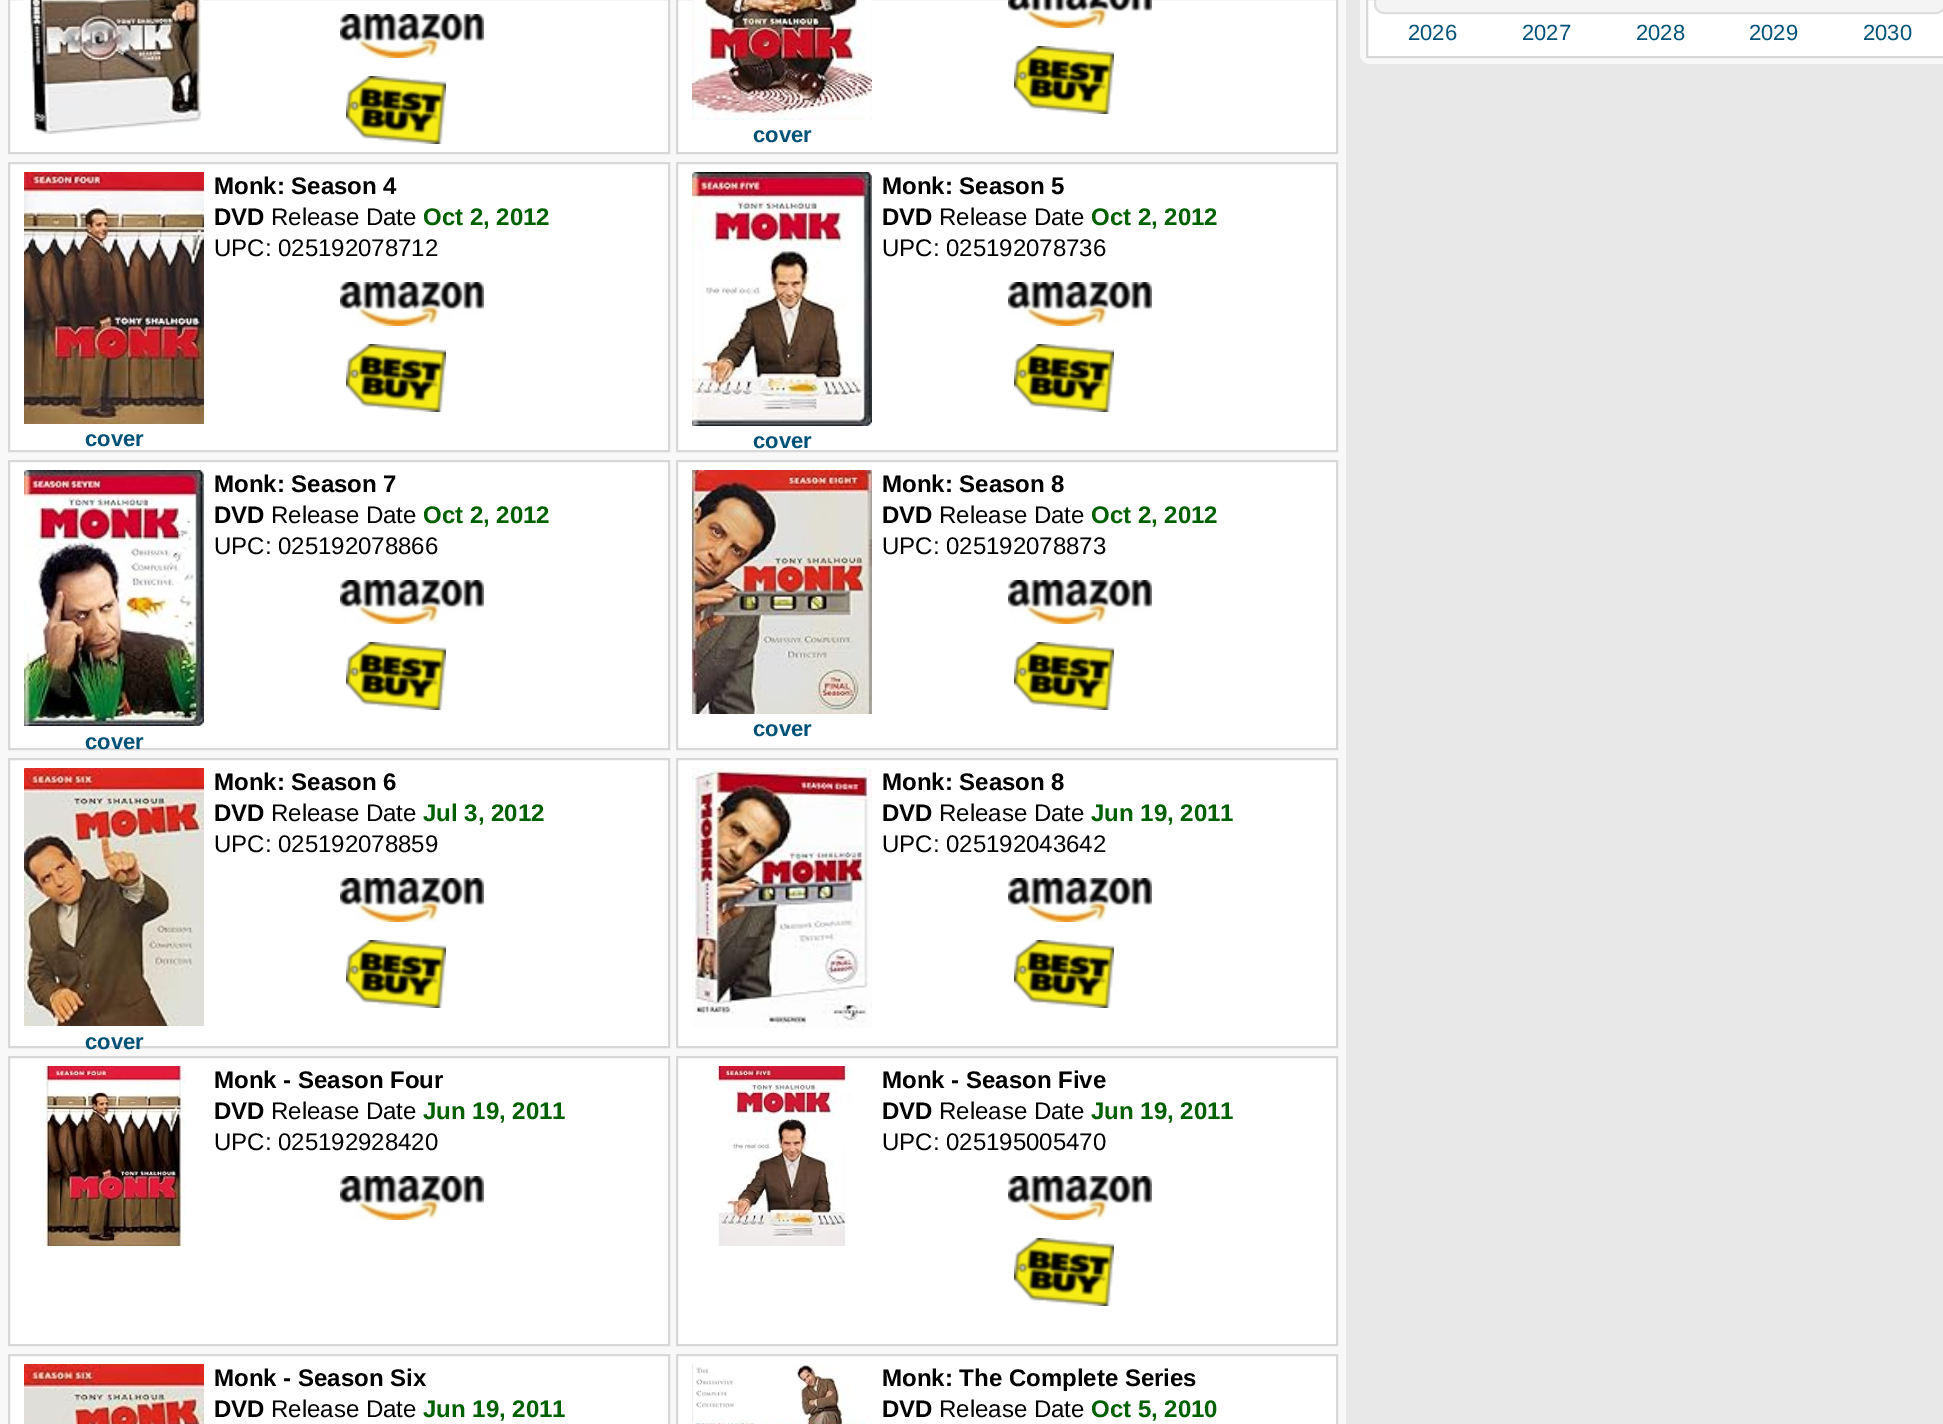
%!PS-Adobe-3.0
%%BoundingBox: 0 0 1943 1424
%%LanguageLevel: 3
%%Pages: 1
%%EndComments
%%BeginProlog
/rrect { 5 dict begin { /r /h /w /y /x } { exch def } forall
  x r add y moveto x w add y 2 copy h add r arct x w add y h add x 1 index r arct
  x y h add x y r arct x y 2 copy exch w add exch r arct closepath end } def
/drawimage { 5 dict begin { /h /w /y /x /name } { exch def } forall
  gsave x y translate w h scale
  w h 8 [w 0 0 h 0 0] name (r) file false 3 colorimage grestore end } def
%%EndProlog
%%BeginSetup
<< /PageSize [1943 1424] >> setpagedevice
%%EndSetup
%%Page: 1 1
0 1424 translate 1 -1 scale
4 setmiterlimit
0.91 setgray
0 0 1943 1424 rectfill
0.973 setgray
1360 -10 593 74 10 rrect fill
1 setgray
newpath 1367 -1 moveto 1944 -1 lineto 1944 57 lineto 1367 57 lineto closepath gsave fill grestore
0.847 setgray
2 setlinewidth
stroke
0.957 setgray
1375 -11 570 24 9 rrect gsave fill grestore
0.871 setgray
stroke
0.973 setgray
0 0 1346 1424 rectfill
1 setgray
newpath 9 -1 moveto 669 -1 lineto 669 153 lineto 9 153 lineto closepath gsave fill grestore
0.847 setgray
stroke
(images/1.raw) 24 0 179 134 drawimage
(images/2.raw) 340 14 144 44 drawimage
(images/3.raw) 346 76 100 68 drawimage
1 setgray
newpath 677 -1 moveto 1337 -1 lineto 1337 153 lineto 677 153 lineto closepath gsave fill grestore
0.847 setgray
stroke
(images/4.raw) 1008 0 144 28 drawimage
(images/3.raw) 1014 46 100 68 drawimage
(images/5.raw) 692 0 180 120 drawimage
1 setgray
newpath 9 163 moveto 669 163 lineto 669 451 lineto 9 451 lineto closepath gsave fill grestore
0.847 setgray
stroke
(images/2.raw) 340 282 144 44 drawimage
(images/3.raw) 346 344 100 68 drawimage
(images/6.raw) 24 172 180 252 drawimage
1 setgray
newpath 677 163 moveto 1337 163 lineto 1337 451 lineto 677 451 lineto closepath gsave fill grestore
0.847 setgray
stroke
(images/2.raw) 1008 282 144 44 drawimage
(images/3.raw) 1014 344 100 68 drawimage
(images/7.raw) 692 172 180 254 drawimage
1 setgray
newpath 9 461 moveto 669 461 lineto 669 749 lineto 9 749 lineto closepath gsave fill grestore
0.847 setgray
stroke
(images/2.raw) 340 580 144 44 drawimage
(images/3.raw) 346 642 100 68 drawimage
(images/8.raw) 24 470 180 256 drawimage
1 setgray
newpath 677 461 moveto 1337 461 lineto 1337 749 lineto 677 749 lineto closepath gsave fill grestore
0.847 setgray
stroke
(images/2.raw) 1008 580 144 44 drawimage
(images/3.raw) 1014 642 100 68 drawimage
(images/9.raw) 692 470 180 244 drawimage
1 setgray
newpath 9 759 moveto 669 759 lineto 669 1047 lineto 9 1047 lineto closepath gsave fill grestore
0.847 setgray
stroke
(images/2.raw) 340 878 144 44 drawimage
(images/3.raw) 346 940 100 68 drawimage
(images/10.raw) 24 768 180 258 drawimage
1 setgray
newpath 677 759 moveto 1337 759 lineto 1337 1047 lineto 677 1047 lineto closepath gsave fill grestore
0.847 setgray
stroke
(images/11.raw) 692 768 180 260 drawimage
(images/2.raw) 1008 878 144 44 drawimage
(images/3.raw) 1014 940 100 68 drawimage
1 setgray
newpath 9 1057 moveto 669 1057 lineto 669 1345 lineto 9 1345 lineto closepath gsave fill grestore
0.847 setgray
stroke
(images/12.raw) 42 1066 144 180 drawimage
(images/2.raw) 340 1176 144 44 drawimage
1 setgray
newpath 677 1057 moveto 1337 1057 lineto 1337 1345 lineto 677 1345 lineto closepath gsave fill grestore
0.847 setgray
stroke
(images/13.raw) 710 1066 143 180 drawimage
(images/2.raw) 1008 1176 144 44 drawimage
(images/3.raw) 1014 1238 100 68 drawimage
1 setgray
newpath 9 1355 moveto 669 1355 lineto 669 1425 lineto 9 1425 lineto closepath gsave fill grestore
0.847 setgray
stroke
(images/14.raw) 24 1364 180 60 drawimage
1 setgray
newpath 677 1355 moveto 1337 1355 lineto 1337 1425 lineto 677 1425 lineto closepath gsave fill grestore
0.847 setgray
stroke
(images/15.raw) 692 1364 180 60 drawimage
/LiberationSans-Regular [22 0 0 -22 0 0] selectfont
0 0.318 0.467 setrgbcolor
1408 40 moveto (2026) show
1522 40 moveto (2027) show
1636 40 moveto (2028) show
1749 40 moveto (2029) show
1863 40 moveto (2030) show
/LiberationSans-Bold [22 0 0 -22 0 0] selectfont
753 142 moveto (cover) show
/LiberationSans-Bold [24 0 0 -24 0 0] selectfont
0 setgray
214 194 moveto (Monk: Season 4) show
214 225 moveto (DVD) show
/LiberationSans-Regular [24 0 0 -24 0 0] selectfont
271 225 moveto (Release Date) show
/LiberationSans-Bold [24 0 0 -24 0 0] selectfont
0 0.376 0 setrgbcolor
423 225 moveto (Oct 2, 2012) show
/LiberationSans-Regular [24 0 0 -24 0 0] selectfont
0 setgray
214 256 moveto (UPC: 025192078712) show
/LiberationSans-Bold [22 0 0 -22 0 0] selectfont
0 0.318 0.467 setrgbcolor
85 446 moveto (cover) show
/LiberationSans-Bold [24 0 0 -24 0 0] selectfont
0 setgray
882 194 moveto (Monk: Season 5) show
882 225 moveto (DVD) show
/LiberationSans-Regular [24 0 0 -24 0 0] selectfont
939 225 moveto (Release Date) show
/LiberationSans-Bold [24 0 0 -24 0 0] selectfont
0 0.376 0 setrgbcolor
1091 225 moveto (Oct 2, 2012) show
/LiberationSans-Regular [24 0 0 -24 0 0] selectfont
0 setgray
882 256 moveto (UPC: 025192078736) show
/LiberationSans-Bold [22 0 0 -22 0 0] selectfont
0 0.318 0.467 setrgbcolor
753 448 moveto (cover) show
/LiberationSans-Bold [24 0 0 -24 0 0] selectfont
0 setgray
214 492 moveto (Monk: Season 7) show
214 523 moveto (DVD) show
/LiberationSans-Regular [24 0 0 -24 0 0] selectfont
271 523 moveto (Release Date) show
/LiberationSans-Bold [24 0 0 -24 0 0] selectfont
0 0.376 0 setrgbcolor
423 523 moveto (Oct 2, 2012) show
/LiberationSans-Regular [24 0 0 -24 0 0] selectfont
0 setgray
214 554 moveto (UPC: 025192078866) show
/LiberationSans-Bold [22 0 0 -22 0 0] selectfont
0 0.318 0.467 setrgbcolor
85 749 moveto (cover) show
/LiberationSans-Bold [24 0 0 -24 0 0] selectfont
0 setgray
882 492 moveto (Monk: Season 8) show
882 523 moveto (DVD) show
/LiberationSans-Regular [24 0 0 -24 0 0] selectfont
939 523 moveto (Release Date) show
/LiberationSans-Bold [24 0 0 -24 0 0] selectfont
0 0.376 0 setrgbcolor
1091 523 moveto (Oct 2, 2012) show
/LiberationSans-Regular [24 0 0 -24 0 0] selectfont
0 setgray
882 554 moveto (UPC: 025192078873) show
/LiberationSans-Bold [22 0 0 -22 0 0] selectfont
0 0.318 0.467 setrgbcolor
753 736 moveto (cover) show
/LiberationSans-Bold [24 0 0 -24 0 0] selectfont
0 setgray
214 790 moveto (Monk: Season 6) show
214 821 moveto (DVD) show
/LiberationSans-Regular [24 0 0 -24 0 0] selectfont
271 821 moveto (Release Date) show
/LiberationSans-Bold [24 0 0 -24 0 0] selectfont
0 0.376 0 setrgbcolor
423 821 moveto (Jul 3, 2012) show
/LiberationSans-Regular [24 0 0 -24 0 0] selectfont
0 setgray
214 852 moveto (UPC: 025192078859) show
/LiberationSans-Bold [22 0 0 -22 0 0] selectfont
0 0.318 0.467 setrgbcolor
85 1049 moveto (cover) show
/LiberationSans-Bold [24 0 0 -24 0 0] selectfont
0 setgray
882 790 moveto (Monk: Season 8) show
882 821 moveto (DVD) show
/LiberationSans-Regular [24 0 0 -24 0 0] selectfont
939 821 moveto (Release Date) show
/LiberationSans-Bold [24 0 0 -24 0 0] selectfont
0 0.376 0 setrgbcolor
1091 821 moveto (Jun 19, 2011) show
/LiberationSans-Regular [24 0 0 -24 0 0] selectfont
0 setgray
882 852 moveto (UPC: 025192043642) show
/LiberationSans-Bold [24 0 0 -24 0 0] selectfont
214 1088 moveto (Monk - Season Four) show
214 1119 moveto (DVD) show
/LiberationSans-Regular [24 0 0 -24 0 0] selectfont
271 1119 moveto (Release Date) show
/LiberationSans-Bold [24 0 0 -24 0 0] selectfont
0 0.376 0 setrgbcolor
423 1119 moveto (Jun 19, 2011) show
/LiberationSans-Regular [24 0 0 -24 0 0] selectfont
0 setgray
214 1150 moveto (UPC: 025192928420) show
/LiberationSans-Bold [24 0 0 -24 0 0] selectfont
882 1088 moveto (Monk - Season Five) show
882 1119 moveto (DVD) show
/LiberationSans-Regular [24 0 0 -24 0 0] selectfont
939 1119 moveto (Release Date) show
/LiberationSans-Bold [24 0 0 -24 0 0] selectfont
0 0.376 0 setrgbcolor
1091 1119 moveto (Jun 19, 2011) show
/LiberationSans-Regular [24 0 0 -24 0 0] selectfont
0 setgray
882 1150 moveto (UPC: 025195005470) show
/LiberationSans-Bold [24 0 0 -24 0 0] selectfont
214 1386 moveto (Monk - Season Six) show
214 1417 moveto (DVD) show
/LiberationSans-Regular [24 0 0 -24 0 0] selectfont
271 1417 moveto (Release Date) show
/LiberationSans-Bold [24 0 0 -24 0 0] selectfont
0 0.376 0 setrgbcolor
423 1417 moveto (Jun 19, 2011) show
0 setgray
882 1386 moveto (Monk: The Complete Series) show
882 1417 moveto (DVD) show
/LiberationSans-Regular [24 0 0 -24 0 0] selectfont
939 1417 moveto (Release Date) show
/LiberationSans-Bold [24 0 0 -24 0 0] selectfont
0 0.376 0 setrgbcolor
1091 1417 moveto (Oct 5, 2010) show
showpage
%%EOF
